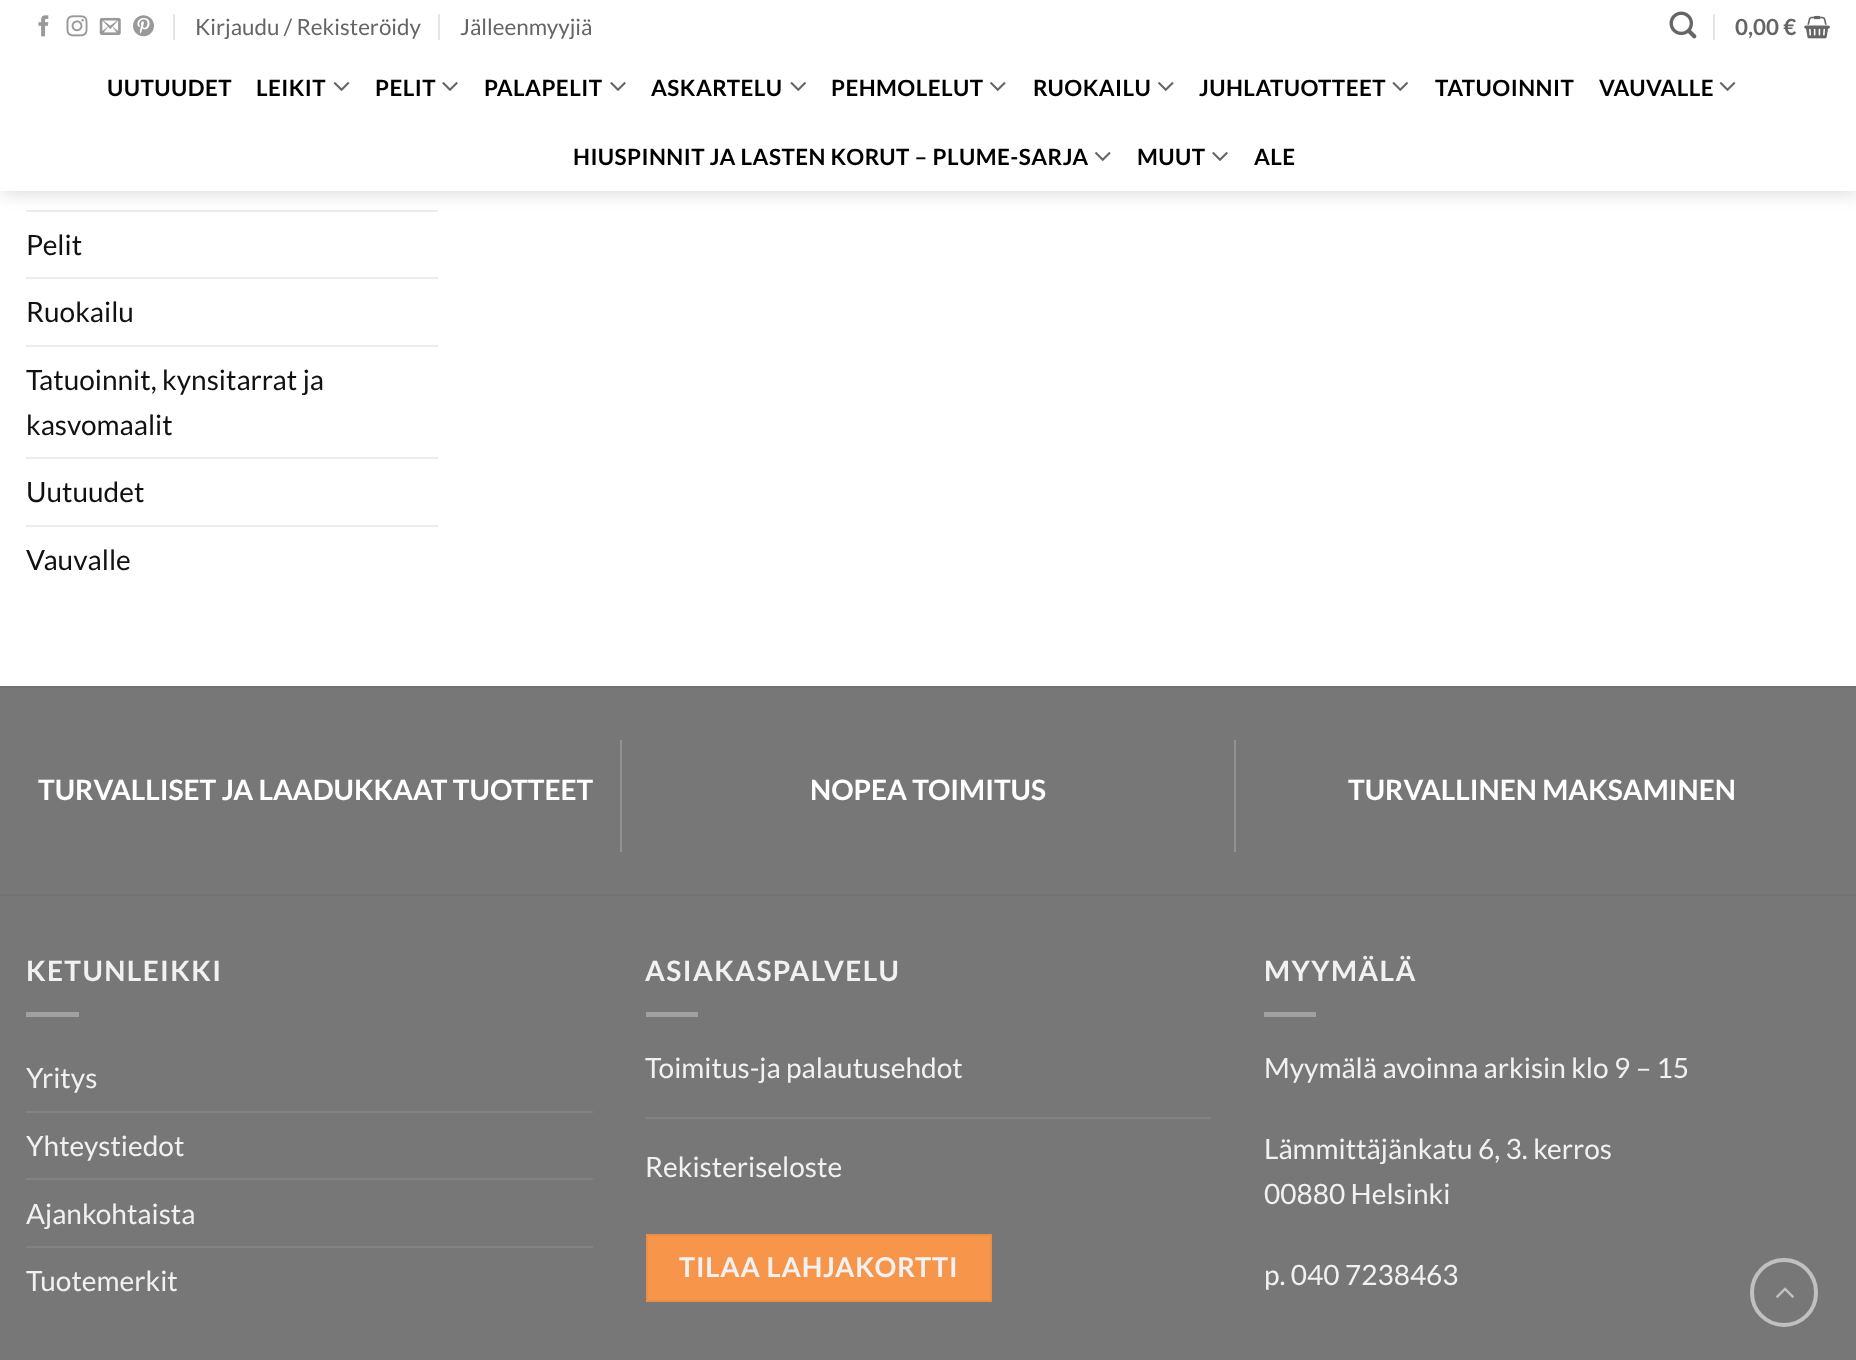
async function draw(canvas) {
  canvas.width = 1856
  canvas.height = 1360
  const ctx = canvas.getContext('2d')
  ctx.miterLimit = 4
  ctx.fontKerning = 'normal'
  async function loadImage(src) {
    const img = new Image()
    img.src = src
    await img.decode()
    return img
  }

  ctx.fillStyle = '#fff'
  ctx.fillRect(0, 0, 1856, 1360)
  ctx.fillStyle = '#ececec'
  ctx.fillRect(26, 210, 412, 2)
  ctx.fillStyle = '#00000026'
  ctx.filter = 'blur(9px)'
  ctx.beginPath()
  ctx.rect(2, 2, 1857, 191)
  ctx.fill()
  ctx.filter = 'none'
  ctx.fillStyle = '#fff'
  ctx.fillRect(0, 0, 1856, 191)
  ctx.drawImage(await loadImage('image0.png'), 38, 15, 11, 22)
  ctx.drawImage(await loadImage('image1.png'), 66, 15, 22, 22)
  ctx.drawImage(await loadImage('image2.png'), 99, 17, 22, 18)
  ctx.drawImage(await loadImage('image3.png'), 133, 15, 21, 22)
  ctx.fillStyle = '#e6e6e6'
  ctx.fillRect(173, 14, 2, 26)
  ctx.font = '22.4px Lato'
  ctx.fillStyle = '#656565'
  ctx.fillText('Kirjaudu / Rekisteröidy', 195, 35)
  ctx.fillStyle = '#e6e6e6'
  ctx.fillRect(438, 14, 2, 26)
  ctx.fillStyle = '#656565'
  ctx.fillText('Jälleenmyyjiä', 460, 35)
  ctx.drawImage(await loadImage('image4.png'), 1669, 11, 28, 28)
  ctx.fillStyle = '#e6e6e6'
  ctx.fillRect(1713, 14, 2, 26)
  ctx.font = 'bold 22.4px Lato'
  ctx.fillStyle = '#656565'
  ctx.fillText('0,00 €', 1735, 35)
  ctx.drawImage(await loadImage('image5.png'), 1804, 15, 26, 24)
  ctx.letterSpacing = '0.45px'
  ctx.fillStyle = '#000'
  ctx.fillText('UUTUUDET', 107, 96)
  ctx.fillText('LEIKIT', 256, 96)
  ctx.drawImage(await loadImage('image6.png'), 333, 82, 17, 9)
  ctx.fillText('PELIT', 375, 96)
  ctx.drawImage(await loadImage('image7.png'), 442, 82, 16, 9)
  ctx.fillText('PALAPELIT', 484, 96)
  ctx.drawImage(await loadImage('image7.png'), 610, 82, 16, 9)
  ctx.fillText('ASKARTELU', 651, 96)
  ctx.drawImage(await loadImage('image8.png'), 790, 82, 16, 9)
  ctx.fillText('PEHMOLELUT', 831, 96)
  ctx.drawImage(await loadImage('image9.png'), 990, 82, 16, 9)
  ctx.fillText('RUOKAILU', 1033, 96)
  ctx.drawImage(await loadImage('image9.png'), 1158, 82, 16, 9)
  ctx.fillText('JUHLATUOTTEET', 1199, 96)
  ctx.drawImage(await loadImage('image8.png'), 1392, 82, 16, 9)
  ctx.fillText('TATUOINNIT', 1435, 96)
  ctx.fillText('VAUVALLE', 1599, 96)
  ctx.drawImage(await loadImage('image6.png'), 1719, 82, 17, 9)
  ctx.fillText('HIUSPINNIT JA LASTEN KORUT – PLUME-SARJA', 573, 165)
  ctx.drawImage(await loadImage('image9.png'), 1095, 152, 16, 9)
  ctx.fillText('MUUT', 1137, 165)
  ctx.drawImage(await loadImage('image7.png'), 1212, 152, 16, 9)
  ctx.fillText('ALE', 1254, 165)
  ctx.letterSpacing = '0px'
  ctx.font = '28px Lato'
  ctx.fillStyle = '#111'
  ctx.fillText('Pelit', 26, 255)
  ctx.fillStyle = '#ececec'
  ctx.fillRect(26, 277, 412, 2)
  ctx.fillStyle = '#111'
  ctx.fillText('Ruokailu', 26, 322)
  ctx.fillStyle = '#ececec'
  ctx.fillRect(26, 345, 412, 2)
  ctx.fillStyle = '#111'
  ctx.fillText('Tatuoinnit, kynsitarrat ja', 26, 390)
  ctx.fillText('kasvomaalit', 26, 435)
  ctx.fillStyle = '#ececec'
  ctx.fillRect(26, 457, 412, 2)
  ctx.fillStyle = '#111'
  ctx.fillText('Uutuudet', 26, 502)
  ctx.fillStyle = '#ececec'
  ctx.fillRect(26, 525, 412, 2)
  ctx.fillStyle = '#111'
  ctx.fillText('Vauvalle', 26, 570)
  ctx.fillStyle = '#777'
  ctx.fillRect(0, 688, 1856, 206)
  ctx.fillStyle = '#717171'
  ctx.fillRect(0, 686, 1856, 2)
  ctx.font = 'bold 28px Lato'
  ctx.fillStyle = '#fff'
  ctx.fillText('TURVALLISET JA LAADUKKAAT TUOTTEET', 38, 800)
  ctx.fillStyle = '#929292'
  ctx.fillRect(620, 740, 2, 112)
  ctx.fillStyle = '#fff'
  ctx.fillText('NOPEA TOIMITUS', 810, 800)
  ctx.fillStyle = '#929292'
  ctx.fillRect(1234, 740, 2, 112)
  ctx.fillStyle = '#fff'
  ctx.fillText('TURVALLINEN MAKSAMINEN', 1348, 800)
  ctx.fillStyle = '#777'
  ctx.fillRect(0, 896, 1856, 464)
  ctx.fillStyle = '#717171'
  ctx.fillRect(0, 894, 1856, 2)
  ctx.letterSpacing = '1.4px'
  ctx.fillStyle = '#f1f1f1'
  ctx.fillText('KETUNLEIKKI', 26, 981)
  ctx.fillStyle = '#a0a0a0'
  ctx.fillRect(26, 1012, 53, 5)
  ctx.letterSpacing = '0px'
  ctx.font = '28px Lato'
  ctx.fillStyle = '#f1f1f1'
  ctx.fillText('Yritys', 26, 1088)
  ctx.fillStyle = '#828282'
  ctx.fillRect(26, 1111, 567, 2)
  ctx.fillStyle = '#f1f1f1'
  ctx.fillText('Yhteystiedot', 26, 1156)
  ctx.fillStyle = '#828282'
  ctx.fillRect(26, 1178, 567, 2)
  ctx.fillStyle = '#f1f1f1'
  ctx.fillText('Ajankohtaista', 26, 1224)
  ctx.fillStyle = '#828282'
  ctx.fillRect(26, 1246, 567, 2)
  ctx.fillStyle = '#f1f1f1'
  ctx.fillText('Tuotemerkit', 26, 1291)
  ctx.letterSpacing = '1.4px'
  ctx.font = 'bold 28px Lato'
  ctx.fillText('ASIAKASPALVELU', 645, 981)
  ctx.fillStyle = '#a0a0a0'
  ctx.fillRect(646, 1012, 52, 5)
  ctx.letterSpacing = '0px'
  ctx.font = '28px Lato'
  ctx.fillStyle = '#f1f1f1'
  ctx.fillText('Toimitus-ja palautusehdot', 645, 1078)
  ctx.fillStyle = '#838383'
  ctx.fillRect(646, 1117, 565, 2)
  ctx.fillStyle = '#f1f1f1'
  ctx.fillText('Rekisteriseloste', 645, 1177)
  ctx.fillStyle = '#f7954a'
  ctx.beginPath()
  ctx.rect(647, 1235, 344, 66)
  ctx.fill()
  ctx.strokeStyle = '#eb8e46'
  ctx.lineWidth = 2
  ctx.stroke()
  ctx.letterSpacing = '0.8px'
  ctx.font = 'bold 27.25px Lato'
  ctx.fillStyle = '#f1f1f1'
  ctx.fillText('TILAA LAHJAKORTTI', 679, 1277)
  ctx.letterSpacing = '1.4px'
  ctx.font = 'bold 28px Lato'
  ctx.fillText('MYYMÄLÄ', 1264, 981)
  ctx.fillStyle = '#a0a0a0'
  ctx.fillRect(1264, 1012, 52, 5)
  ctx.letterSpacing = '0px'
  ctx.font = '28px Lato'
  ctx.fillStyle = '#f1f1f1'
  ctx.fillText('Myymälä avoinna arkisin klo 9 – 15', 1264, 1078)
  ctx.fillText('Lämmittäjänkatu 6, 3. kerros', 1264, 1159)
  ctx.fillText('00880 Helsinki', 1264, 1204)
  ctx.fillText('p. 040 7238463', 1264, 1285)
  ctx.beginPath()
  ctx.roundRect(1752, 1260, 64, 65, 32)
  ctx.strokeStyle = '#c0c0c0'
  ctx.lineWidth = 4
  ctx.stroke()
  ctx.drawImage(await loadImage('image10.png'), 1776, 1287, 18, 11)
}

draw(document.querySelector('canvas'))
